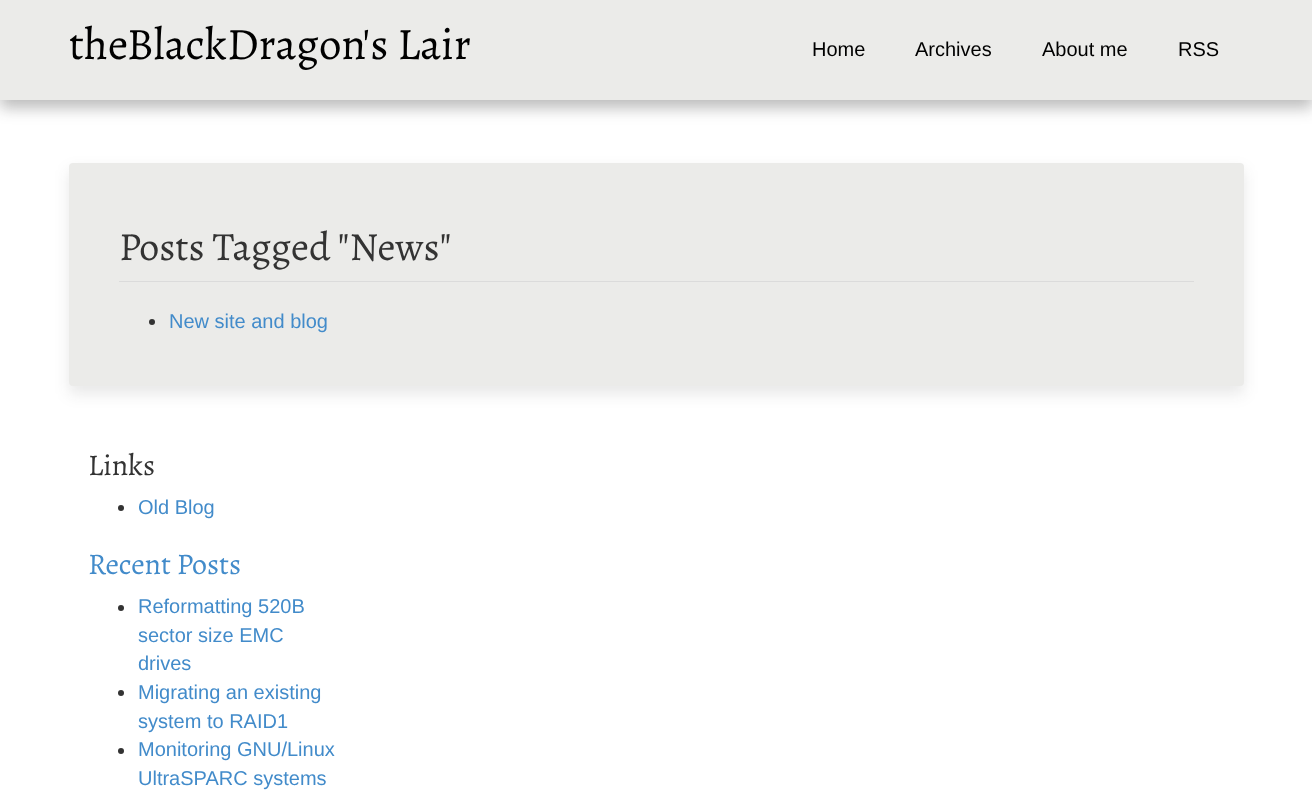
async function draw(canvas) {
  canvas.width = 1312
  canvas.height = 809
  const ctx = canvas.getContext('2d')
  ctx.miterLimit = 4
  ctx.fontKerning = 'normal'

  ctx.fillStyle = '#fff'
  ctx.fillRect(0, 0, 1312, 809)
  ctx.fillStyle = '#2222224d'
  ctx.filter = 'blur(7.5px)'
  ctx.beginPath()
  ctx.rect(0, 8, 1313, 100)
  ctx.fill()
  ctx.filter = 'none'
  ctx.fillStyle = '#ebebe9'
  ctx.fillRect(0, 0, 1312, 100)
  ctx.font = '45px Alegreya'
  ctx.fillStyle = '#000'
  ctx.fillText('theBlackDragon\'s Lair', 69, 59)
  ctx.font = '20px Liberation Sans'
  ctx.fillText('Home', 812, 56)
  ctx.fillText('Archives', 915, 56)
  ctx.fillText('About me', 1042, 56)
  ctx.fillText('RSS', 1178, 56)
  ctx.fillStyle = '#2222221a'
  ctx.filter = 'blur(7.5px)'
  ctx.beginPath()
  ctx.roundRect(69, 170, 1175, 224, 4)
  ctx.fill()
  ctx.filter = 'none'
  ctx.fillStyle = '#ebebe9'
  ctx.beginPath()
  ctx.roundRect(69, 163, 1175, 223, 4)
  ctx.fill()
  ctx.fillStyle = '#dbdbdb'
  ctx.fillRect(119, 281, 1075, 1)
  ctx.font = '40px Alegreya'
  ctx.fillStyle = '#333'
  ctx.fillText('Posts Tagged "News"', 119, 260)
  ctx.beginPath()
  ctx.arc(152, 322, 3, 0, 2 * Math.PI)
  ctx.fill()
  ctx.font = '20px Liberation Sans'
  ctx.fillStyle = '#428bca'
  ctx.fillText('New site and blog', 169, 328)
  ctx.font = '30px Alegreya'
  ctx.fillStyle = '#333'
  ctx.fillText('Links', 88, 475)
  ctx.beginPath()
  ctx.arc(121, 508, 3, 0, 2 * Math.PI)
  ctx.fill()
  ctx.font = '20px Liberation Sans'
  ctx.fillStyle = '#428bca'
  ctx.fillText('Old Blog', 138, 514)
  ctx.font = '30px Alegreya'
  ctx.fillText('Recent Posts', 88, 574)
  ctx.fillStyle = '#333'
  ctx.beginPath()
  ctx.arc(121, 608, 3, 0, 2 * Math.PI)
  ctx.fill()
  ctx.font = '20px Liberation Sans'
  ctx.fillStyle = '#428bca'
  ctx.fillText('Reformatting 520B', 138, 613)
  ctx.fillText('sector size EMC', 138, 642)
  ctx.fillText('drives', 138, 670)
  ctx.fillStyle = '#333'
  ctx.beginPath()
  ctx.arc(121, 693, 3, 0, 2 * Math.PI)
  ctx.fill()
  ctx.fillStyle = '#428bca'
  ctx.fillText('Migrating an existing', 138, 699)
  ctx.fillText('system to RAID1', 138, 728)
  ctx.fillStyle = '#333'
  ctx.beginPath()
  ctx.arc(121, 751, 3, 0, 2 * Math.PI)
  ctx.fill()
  ctx.fillStyle = '#428bca'
  ctx.fillText('Monitoring GNU/Linux', 138, 756)
  ctx.fillText('UltraSPARC systems', 138, 785)
}

draw(document.querySelector('canvas'))
